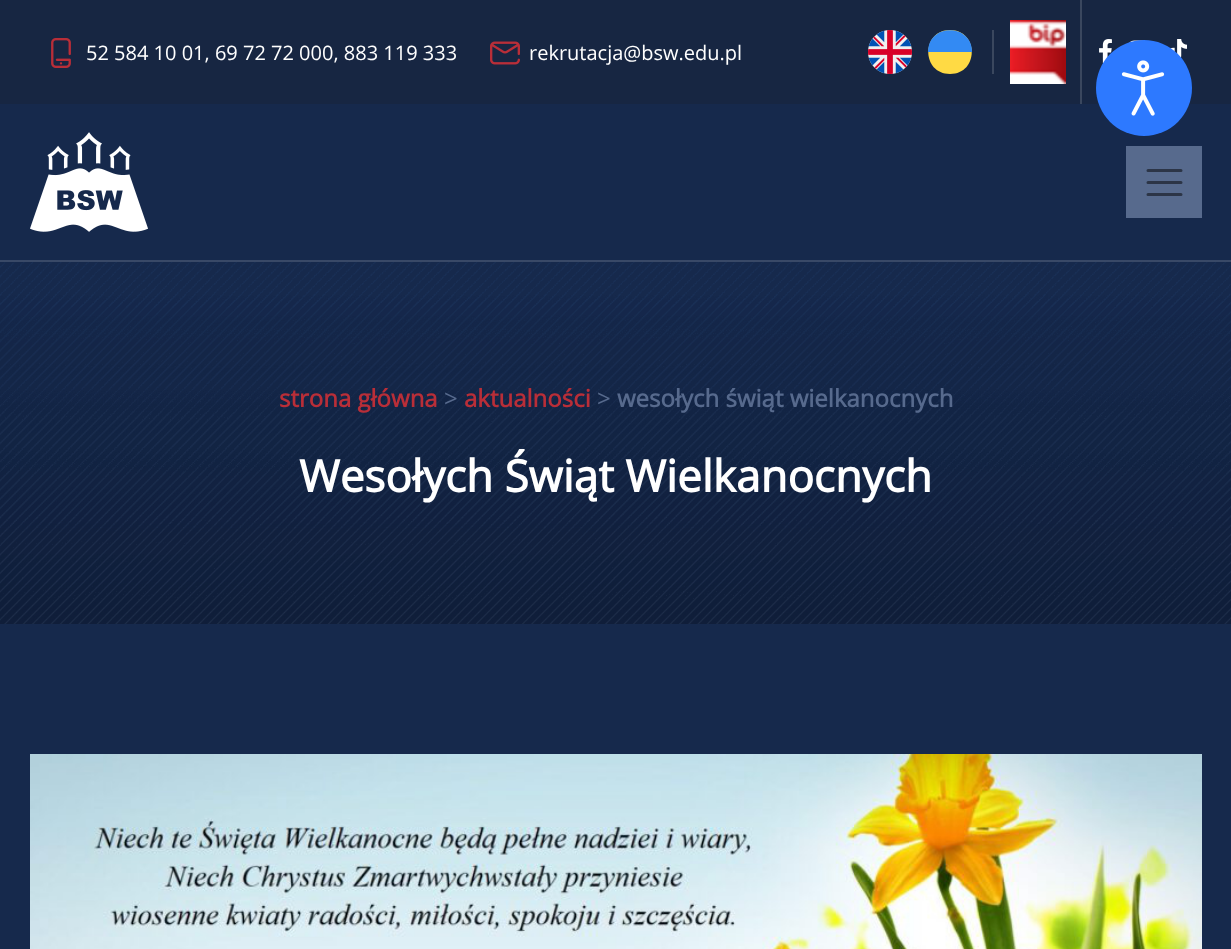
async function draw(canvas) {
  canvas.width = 1231
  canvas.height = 949
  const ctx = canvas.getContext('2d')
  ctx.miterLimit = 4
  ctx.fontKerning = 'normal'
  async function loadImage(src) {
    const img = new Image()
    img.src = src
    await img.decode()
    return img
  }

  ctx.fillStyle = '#16294c'
  ctx.fillRect(0, 0, 1231, 949)
  ctx.fillStyle = '#172642'
  ctx.fillRect(0, 0, 1231, 104)
  ctx.drawImage(await loadImage('image0.png'), 51, 38, 20, 30)
  ctx.font = '20px Open Sans'
  ctx.fillStyle = '#fff'
  ctx.fillText('52 584 10 01, 69 72 72 000, 883 119 333', 86, 60)
  ctx.drawImage(await loadImage('image1.png'), 490, 41, 30, 24)
  ctx.fillText('rekrutacja@bsw.edu.pl', 529, 60)
  ctx.drawImage(await loadImage('image2.png'), 868, 30, 44, 44)
  ctx.fillStyle = '#ffda44'
  ctx.beginPath()
  ctx.moveTo(950, 74)
  ctx.bezierCurveTo(979, 74, 979, 30, 950, 30)
  ctx.bezierCurveTo(921, 30, 921, 74, 950, 74)
  ctx.closePath()
  ctx.fill()
  ctx.fillStyle = '#338af3'
  ctx.beginPath()
  ctx.moveTo(928, 52)
  ctx.bezierCurveTo(928, 23, 972, 23, 972, 52)
  ctx.fill()
  ctx.fillStyle = '#3a475e'
  ctx.fillRect(992, 30, 2, 44)
  ctx.drawImage(await loadImage('image3.png'), 1010, 20, 56, 64)
  ctx.fillRect(1080, 0, 2, 104)
  ctx.drawImage(await loadImage('image4.png'), 1099, 39, 13, 24)
  ctx.drawImage(await loadImage('image5.png'), 1129, 40, 16, 3)
  ctx.drawImage(await loadImage('image6.png'), 1170, 39, 17, 19)
  ctx.fillStyle = '#394967'
  ctx.fillRect(0, 260, 1231, 2)
  ctx.drawImage(await loadImage('image7.png'), 30, 132, 118, 100)
  ctx.fillStyle = '#576a8d'
  ctx.fillRect(1126, 146, 76, 72)
  ctx.beginPath()
  ctx.moveTo(1148, 170.5)
  ctx.lineTo(1181, 170.5)
  ctx.moveTo(1148, 182.5)
  ctx.lineTo(1181, 182.5)
  ctx.moveTo(1148, 194.5)
  ctx.lineTo(1181, 194.5)
  ctx.strokeStyle = '#2c3547'
  ctx.lineWidth = 3
  ctx.lineCap = 'round'
  ctx.stroke()
  ctx.fillStyle = '#172642'
  ctx.fillRect(0, 294, 1231, 330)
  ctx.drawImage(await loadImage('image8.png'), 0, 262, 1231, 362)
  ctx.font = 'bold 24px Open Sans'
  ctx.fillStyle = '#b92e38'
  ctx.fillText('strona główna', 279, 407)
  ctx.font = '24px Open Sans'
  ctx.fillStyle = '#576a8d'
  ctx.fillText('>', 444, 407)
  ctx.font = 'bold 24px Open Sans'
  ctx.fillStyle = '#b92e38'
  ctx.fillText('aktualności', 464, 407)
  ctx.font = '24px Open Sans'
  ctx.fillStyle = '#576a8d'
  ctx.fillText('>', 597, 407)
  ctx.font = 'bold 24px Open Sans'
  ctx.fillText('wesołych świąt wielkanocnych', 617, 407)
  ctx.font = 'bold 44px Open Sans'
  ctx.fillStyle = '#fff'
  ctx.fillText('Wesołych Świąt Wielkanocnych', 299, 492)
  ctx.drawImage(await loadImage('image9.png'), 30, 754, 1172, 195)
  ctx.fillStyle = '#2d79ff'
  ctx.beginPath()
  ctx.arc(1144, 88, 48, 0, 2 * Math.PI)
  ctx.fill()
  ctx.drawImage(await loadImage('image10.png'), 1121, 60, 44, 56)
}

draw(document.querySelector('canvas'))
